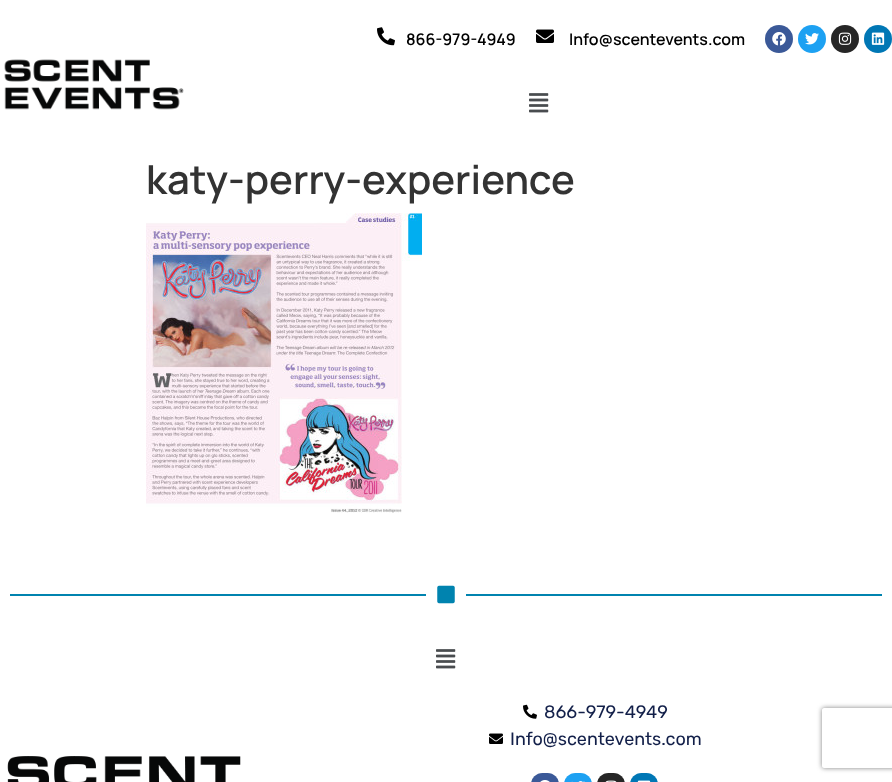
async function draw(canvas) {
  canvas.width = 892
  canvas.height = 782
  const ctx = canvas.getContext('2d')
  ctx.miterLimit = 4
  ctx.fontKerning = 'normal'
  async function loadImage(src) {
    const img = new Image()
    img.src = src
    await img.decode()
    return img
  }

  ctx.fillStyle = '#fff'
  ctx.fillRect(0, 0, 892, 782)
  ctx.drawImage(await loadImage('image0.png'), 377, 27, 18, 19)
  ctx.font = '600 16px Manrope'
  ctx.fillStyle = '#000'
  ctx.fillText('866-979-4949', 406, 45)
  ctx.drawImage(await loadImage('image1.png'), 536, 29, 18, 14)
  ctx.fillText('Info@scentevents.com', 569, 45)
  ctx.fillStyle = '#3b5998'
  ctx.beginPath()
  ctx.arc(779, 39, 14, 0, 2 * Math.PI)
  ctx.fill()
  ctx.drawImage(await loadImage('image2.png'), 772, 32, 14, 14)
  ctx.fillStyle = '#1da1f2'
  ctx.beginPath()
  ctx.arc(812, 39, 14, 0, 2 * Math.PI)
  ctx.fill()
  ctx.drawImage(await loadImage('image3.png'), 805, 33, 14, 12)
  ctx.fillStyle = '#262626'
  ctx.beginPath()
  ctx.arc(845, 39, 14, 0, 2 * Math.PI)
  ctx.fill()
  ctx.drawImage(await loadImage('image4.png'), 838, 32, 14, 13)
  ctx.fillStyle = '#0077b5'
  ctx.beginPath()
  ctx.arc(878, 39, 14, 0, 2 * Math.PI)
  ctx.fill()
  ctx.drawImage(await loadImage('image5.png'), 871, 32, 14, 13)
  ctx.drawImage(await loadImage('image6.png'), 4, 59, 180, 51)
  ctx.drawImage(await loadImage('image7.png'), 529, 93, 20, 20)
  ctx.font = '600 40px Manrope'
  ctx.fillStyle = '#333'
  ctx.fillText('katy-perry-experience', 146, 194)
  ctx.drawImage(await loadImage('image8.png'), 146, 213, 276, 300)
  ctx.fillStyle = '#0083af'
  ctx.fillRect(10, 594, 416, 2)
  ctx.drawImage(await loadImage('image9.png'), 437, 585, 18, 19)
  ctx.fillRect(466, 594, 416, 2)
  ctx.drawImage(await loadImage('image7.png'), 436, 649, 20, 20)
  ctx.drawImage(await loadImage('image10.png'), 523, 704, 14, 15)
  ctx.font = '18px Rubik'
  ctx.fillStyle = '#121f49'
  ctx.fillText('866-979-4949', 544, 718)
  ctx.drawImage(await loadImage('image11.png'), 489, 733, 14, 11)
  ctx.fillText('Info@scentevents.com', 510, 745)
  ctx.fillStyle = '#3b5998'
  ctx.beginPath()
  ctx.roundRect(531, 773, 28, 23, 14)
  ctx.fill()
  ctx.drawImage(await loadImage('image12.png'), 540, 780, 10, 2)
  ctx.fillStyle = '#1da1f2'
  ctx.beginPath()
  ctx.roundRect(564, 773, 28, 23, 14)
  ctx.fill()
  ctx.drawImage(await loadImage('image13.png'), 571, 781, 14, 1)
  ctx.fillStyle = '#262626'
  ctx.beginPath()
  ctx.roundRect(597, 773, 28, 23, 14)
  ctx.fill()
  ctx.drawImage(await loadImage('image14.png'), 605, 780, 12, 2)
  ctx.fillStyle = '#0077b5'
  ctx.beginPath()
  ctx.roundRect(630, 773, 28, 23, 14)
  ctx.fill()
  ctx.drawImage(await loadImage('image15.png'), 637, 780, 14, 2)
  ctx.drawImage(await loadImage('image16.png'), 7, 756, 234, 26)
  ctx.save()
  ctx.beginPath()
  ctx.moveTo(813, 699)
  ctx.lineTo(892, 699)
  ctx.lineTo(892, 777)
  ctx.lineTo(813, 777)
  ctx.closePath()
  ctx.moveTo(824, 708)
  ctx.lineTo(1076, 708)
  ctx.bezierCurveTo(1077, 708, 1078, 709, 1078, 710)
  ctx.lineTo(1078, 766)
  ctx.bezierCurveTo(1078, 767, 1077, 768, 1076, 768)
  ctx.lineTo(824, 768)
  ctx.bezierCurveTo(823, 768, 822, 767, 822, 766)
  ctx.lineTo(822, 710)
  ctx.bezierCurveTo(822, 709, 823, 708, 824, 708)
  ctx.closePath()
  ctx.clip('evenodd')
  ctx.fillStyle = '#808080'
  ctx.filter = 'blur(2.5px)'
  ctx.beginPath()
  ctx.roundRect(822, 708, 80, 60, 2)
  ctx.fill()
  ctx.filter = 'none'
  ctx.restore()
}

draw(document.querySelector('canvas'))
